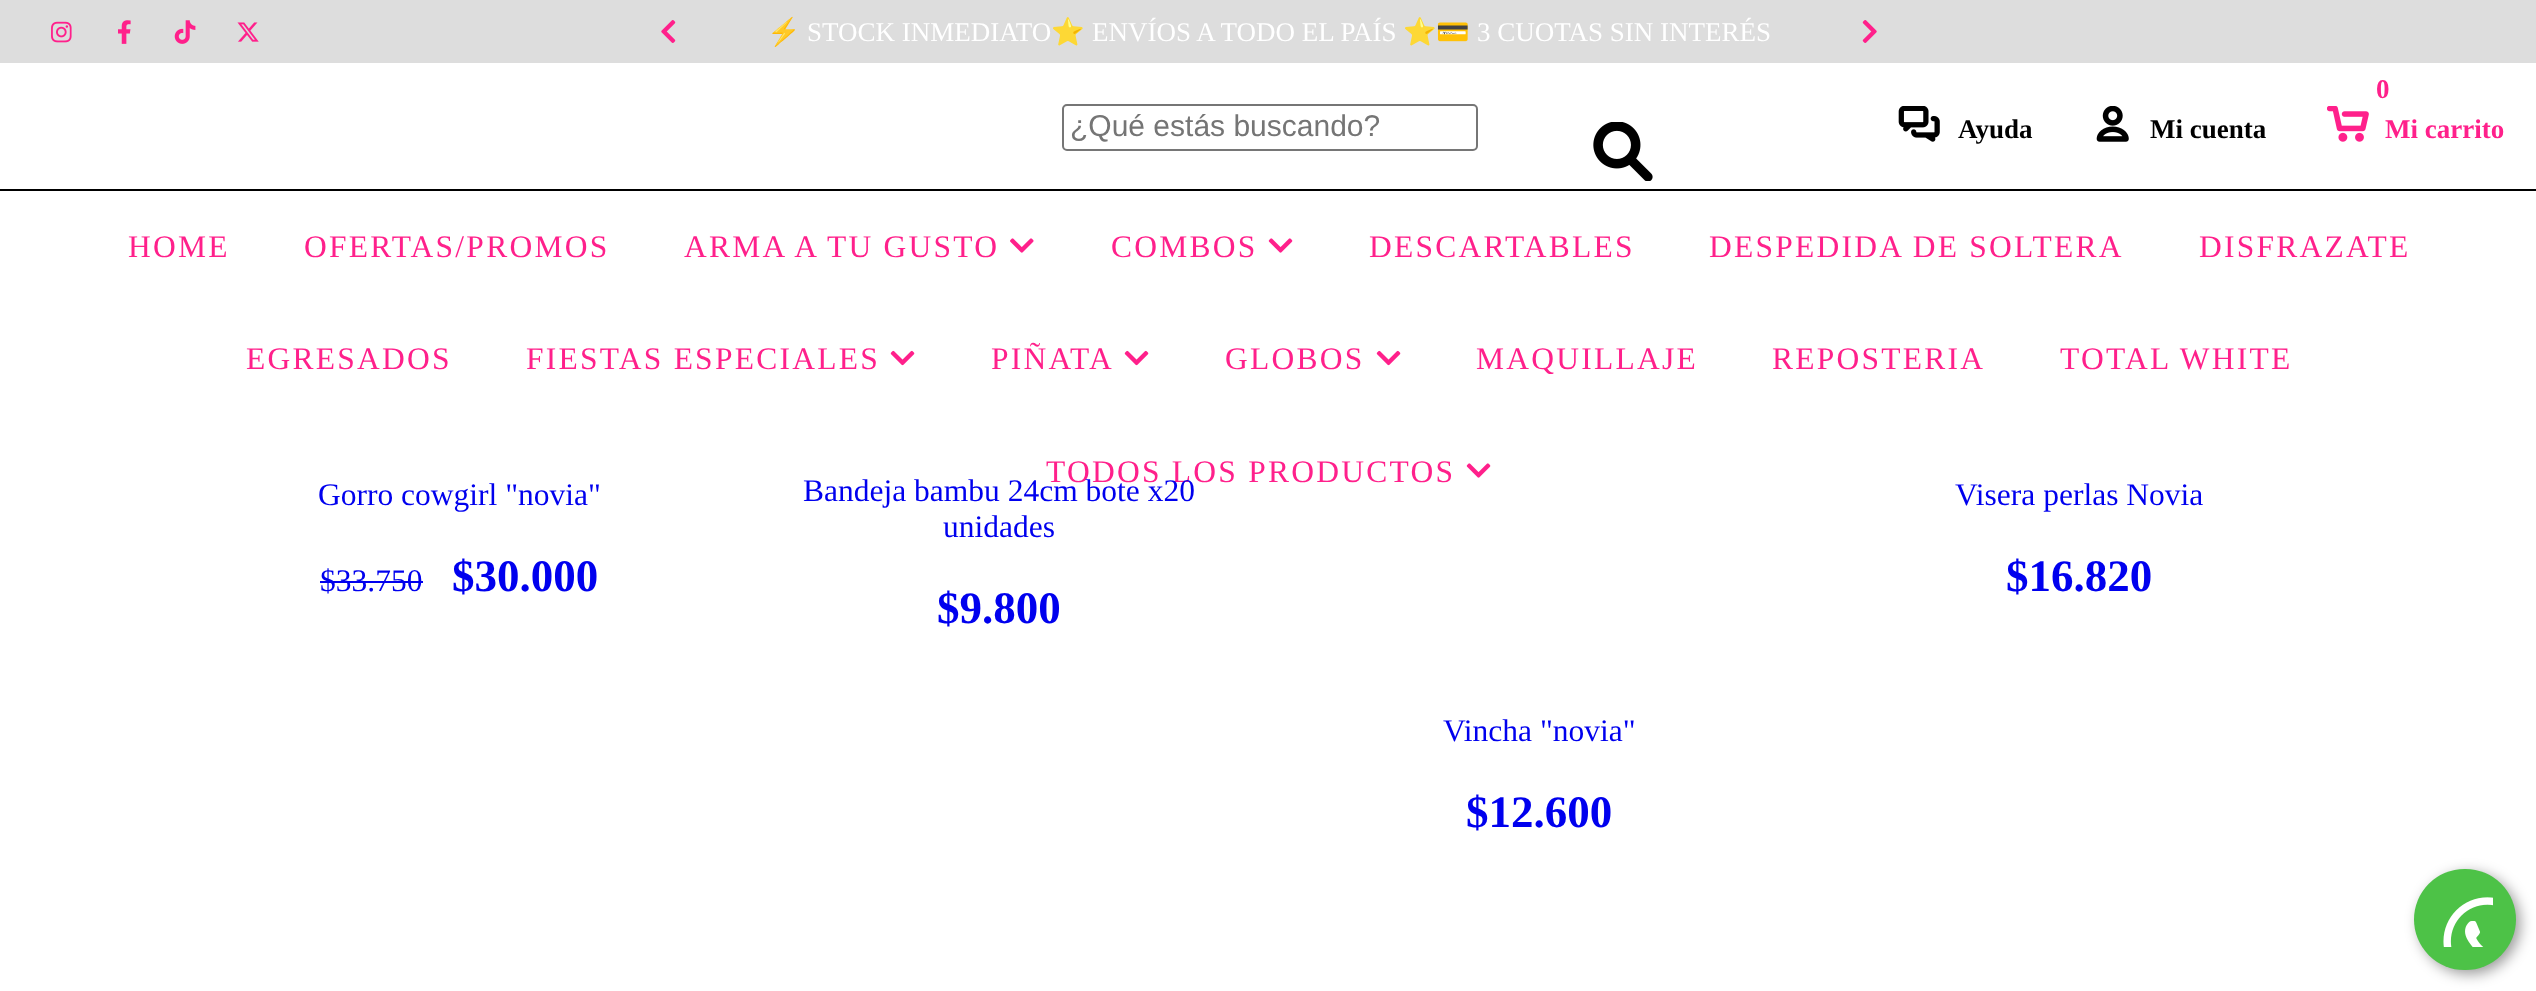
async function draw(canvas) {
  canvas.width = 2536
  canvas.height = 991
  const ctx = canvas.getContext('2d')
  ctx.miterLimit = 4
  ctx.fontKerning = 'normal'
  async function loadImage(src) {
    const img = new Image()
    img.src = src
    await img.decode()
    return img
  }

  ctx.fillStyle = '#fff'
  ctx.fillRect(0, 0, 2536, 991)
  ctx.fillStyle = '#ddd'
  ctx.fillRect(0, 0, 2536, 63)
  ctx.drawImage(await loadImage('image0.png'), 51, 21, 21, 22)
  ctx.drawImage(await loadImage('image1.png'), 118, 20, 13, 24)
  ctx.drawImage(await loadImage('image2.png'), 174, 20, 22, 24)
  ctx.drawImage(await loadImage('image3.png'), 237, 22, 22, 20)
  ctx.drawImage(await loadImage('image4.png'), 661, 20, 15, 23)
  ctx.font = '27px Noto Color Emoji'
  ctx.fillStyle = '#fff'
  ctx.fillText('⚡', 767, 41)
  ctx.font = '27px Liberation Serif'
  ctx.fillText('STOCK INMEDIATO', 807, 41)
  ctx.font = '27px Noto Color Emoji'
  ctx.fillText('⭐', 1051, 41)
  ctx.font = '27px Liberation Serif'
  ctx.fillText('ENVÍOS A TODO EL PAÍS', 1092, 41)
  ctx.font = '27px Noto Color Emoji'
  ctx.fillText('⭐💳', 1403, 41)
  ctx.font = '27px Liberation Serif'
  ctx.fillText('3 CUOTAS SIN INTERÉS', 1477, 41)
  ctx.drawImage(await loadImage('image5.png'), 1862, 20, 15, 23)
  ctx.beginPath()
  ctx.roundRect(1063, 105, 414, 45, 4)
  ctx.strokeStyle = '#767676'
  ctx.lineWidth = 2
  ctx.stroke()
  ctx.font = '30px Liberation Sans'
  ctx.fillStyle = '#757575'
  ctx.fillText('¿Qué estás buscando?', 1070, 136)
  ctx.drawImage(await loadImage('image6.png'), 1593, 122, 60, 59)
  ctx.drawImage(await loadImage('image7.png'), 1898, 106, 42, 36)
  ctx.font = 'bold 27px Liberation Serif'
  ctx.fillStyle = '#000'
  ctx.fillText('Ayuda', 1958, 138)
  ctx.drawImage(await loadImage('image8.png'), 2096, 106, 33, 36)
  ctx.fillText('Mi cuenta', 2150, 138)
  ctx.fillStyle = '#ff208b'
  ctx.fillText('0', 2376, 98)
  ctx.drawImage(await loadImage('image9.png'), 2327, 106, 42, 36)
  ctx.fillText('Mi carrito', 2385, 138)
  ctx.fillStyle = '#000'
  ctx.fillRect(0, 189, 2536, 2)
  ctx.letterSpacing = '2.25px'
  ctx.font = '31.5px Liberation Serif'
  ctx.fillStyle = '#ff208b'
  ctx.fillText('HOME', 128, 257)
  ctx.fillText('OFERTAS/PROMOS', 304, 257)
  ctx.fillText('ARMA A TU GUSTO', 684, 257)
  ctx.drawImage(await loadImage('image10.png'), 1010, 238, 24, 15)
  ctx.fillText('COMBOS', 1111, 257)
  ctx.drawImage(await loadImage('image11.png'), 1268, 238, 25, 15)
  ctx.fillText('DESCARTABLES', 1369, 257)
  ctx.fillText('DESPEDIDA DE SOLTERA', 1709, 257)
  ctx.fillText('DISFRAZATE', 2199, 257)
  ctx.fillText('EGRESADOS', 246, 369)
  ctx.fillText('FIESTAS ESPECIALES', 526, 369)
  ctx.drawImage(await loadImage('image12.png'), 890, 350, 25, 16)
  ctx.fillText('PIÑATA', 991, 369)
  ctx.drawImage(await loadImage('image12.png'), 1124, 350, 25, 16)
  ctx.fillText('GLOBOS', 1225, 369)
  ctx.drawImage(await loadImage('image12.png'), 1376, 350, 25, 16)
  ctx.fillText('MAQUILLAJE', 1476, 369)
  ctx.fillText('REPOSTERIA', 1772, 369)
  ctx.fillText('TOTAL WHITE', 2060, 369)
  ctx.fillText('TODOS LOS PRODUCTOS', 1046, 482)
  ctx.drawImage(await loadImage('image11.png'), 1466, 463, 25, 15)
  ctx.letterSpacing = '0px'
  ctx.fillStyle = '#00e'
  ctx.fillText('Gorro cowgirl "novia"', 318, 505)
  ctx.fillText('$33.750', 320, 591)
  ctx.fillRect(320, 581, 103, 2)
  ctx.font = 'bold 45px Liberation Serif'
  ctx.fillText('$30.000', 452, 591)
  ctx.font = '31.5px Liberation Serif'
  ctx.fillText('Bandeja bambu 24cm bote x20', 803, 501)
  ctx.fillText('unidades', 943, 537)
  ctx.font = 'bold 45px Liberation Serif'
  ctx.fillText('$9.800', 937, 623)
  ctx.font = '31.5px Liberation Serif'
  ctx.fillText('Visera perlas Novia', 1955, 505)
  ctx.font = 'bold 45px Liberation Serif'
  ctx.fillText('$16.820', 2006, 591)
  ctx.font = '31.5px Liberation Serif'
  ctx.fillText('Vincha "novia"', 1443, 741)
  ctx.font = 'bold 45px Liberation Serif'
  ctx.fillText('$12.600', 1466, 827)
  ctx.fillStyle = '#00000066'
  ctx.filter = 'blur(7px)'
  ctx.beginPath()
  ctx.roundRect(2419, 873, 101, 101, 50.5)
  ctx.fill()
  ctx.filter = 'none'
  ctx.fillStyle = '#4dc247'
  ctx.beginPath()
  ctx.roundRect(2414, 869, 102, 101, 50.5)
  ctx.fill()
  ctx.drawImage(await loadImage('image13.png'), 2443, 897, 50, 50)
}

draw(document.querySelector('canvas'))
